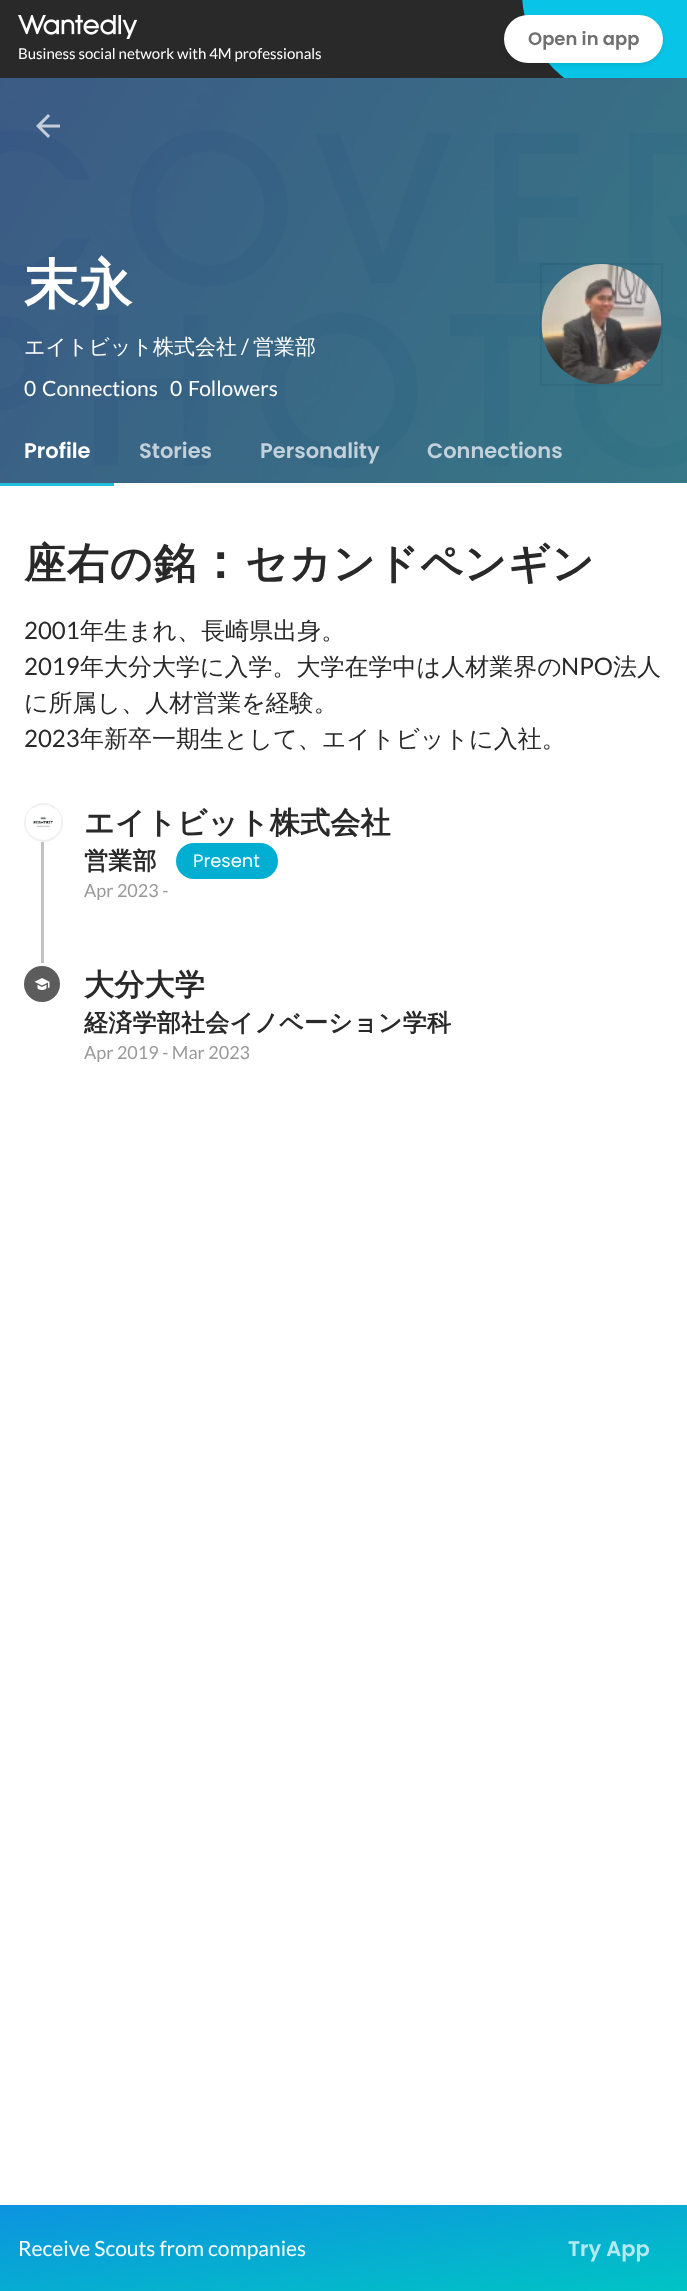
async function draw(canvas) {
  canvas.width = 687
  canvas.height = 2291
  const ctx = canvas.getContext('2d')
  ctx.miterLimit = 4
  ctx.fontKerning = 'normal'
  async function loadImage(src) {
    const img = new Image()
    img.src = src
    await img.decode()
    return img
  }
  let gradient

  ctx.fillStyle = '#fff'
  ctx.fillRect(0, 0, 687, 2291)
  ctx.fillStyle = '#292929'
  ctx.fillRect(0, 0, 570, 78)
  ctx.fillStyle = '#08c5e7'
  ctx.beginPath()
  ctx.roundRect(522, -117, 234, 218, 117)
  ctx.fill()
  ctx.fillStyle = '#0000001a'
  ctx.filter = 'blur(2px)'
  ctx.beginPath()
  ctx.roundRect(504, 17, 159, 48, 24)
  ctx.fill()
  ctx.filter = 'none'
  ctx.fillStyle = '#fff'
  ctx.beginPath()
  ctx.roundRect(504, 15, 159, 48, 24)
  ctx.fill()
  ctx.font = '600 18px Poppins'
  ctx.fillStyle = '#707070'
  ctx.fillText('Open in app', 528, 45)
  ctx.drawImage(await loadImage('image0.png'), 18, 15, 120, 24)
  ctx.font = '15px Lato'
  ctx.fillStyle = '#fff'
  ctx.fillText('Business social network with 4M professionals', 18, 59)
  ctx.drawImage(await loadImage('image1.png'), 0, 78, 687, 405)
  ctx.drawImage(await loadImage('image2.png'), 36, 114, 24, 24)
  ctx.font = 'bold 54px WenQuanYi Zen Hei'
  ctx.fillText('末永', 24, 303)
  ctx.font = '500 21px WenQuanYi Zen Hei'
  ctx.fillText('エイトビット株式会社', 24, 354)
  ctx.font = '21px Lato'
  ctx.fillText('/', 241, 354)
  ctx.font = '500 21px WenQuanYi Zen Hei'
  ctx.fillText('営業部', 253, 354)
  ctx.font = '21px Lato'
  ctx.fillText('0', 24, 396)
  ctx.fillText('Connections', 42, 396)
  ctx.fillText('0', 170, 396)
  ctx.fillText('Followers', 188, 396)
  ctx.strokeStyle = '#0000000f'
  ctx.lineWidth = 2
  ctx.strokeRect(541, 264, 121, 121)
  ctx.drawImage(await loadImage('image3.png'), 541, 264, 121, 120)
  ctx.fillStyle = '#21bddb'
  ctx.fillRect(0, 483, 114, 3)
  ctx.font = '600 21px Poppins'
  ctx.fillStyle = '#fff'
  ctx.fillText('Profile', 24, 458)
  ctx.fillStyle = '#c3d1da'
  ctx.fillText('Stories', 139, 458)
  ctx.fillText('Personality', 260, 458)
  ctx.fillText('Connections', 427, 458)
  ctx.letterSpacing = '0.75px'
  ctx.font = 'bold 42px WenQuanYi Zen Hei'
  ctx.fillStyle = '#292929'
  ctx.fillText('座右の銘', 24, 578)
  ctx.font = 'bold 48px WenQuanYi Zen Hei'
  ctx.fillText('：', 196, 578)
  ctx.font = 'bold 42px WenQuanYi Zen Hei'
  ctx.fillText('セカンドペンギン', 245, 578)
  ctx.letterSpacing = '0px'
  ctx.font = '24px Lato'
  ctx.fillText('2001', 24, 639)
  ctx.font = '500 24px WenQuanYi Zen Hei'
  ctx.fillText('年生まれ、長崎県出身。', 80, 639)
  ctx.font = '24px Lato'
  ctx.fillText('2019', 24, 675)
  ctx.font = '500 24px WenQuanYi Zen Hei'
  ctx.fillText('年大分大学に入学。大学在学中は人材業界の', 80, 675)
  ctx.font = '24px Lato'
  ctx.fillText('NPO', 561, 675)
  ctx.font = '500 24px WenQuanYi Zen Hei'
  ctx.fillText('法人', 613, 675)
  ctx.fillText('に所属し、人材営業を経験。', 24, 711)
  ctx.font = '24px Lato'
  ctx.fillText('2023', 24, 747)
  ctx.font = '500 24px WenQuanYi Zen Hei'
  ctx.fillText('年新卒一期生として、エイトビットに入社。', 80, 747)
  ctx.fillStyle = '#c2c2c2'
  ctx.fillRect(41, 842, 3, 121)
  ctx.beginPath()
  ctx.arc(43.5, 822.5, 18.5, 0, 2 * Math.PI)
  ctx.strokeStyle = '#f0f0f0'
  ctx.stroke()
  ctx.drawImage(await loadImage('image4.png'), 26, 808, 35, 27)
  ctx.letterSpacing = '0.25px'
  ctx.font = 'bold 30px WenQuanYi Zen Hei'
  ctx.fillStyle = '#292929'
  ctx.fillText('エイトビット株式会社', 84, 833)
  ctx.font = 'bold 24px WenQuanYi Zen Hei'
  ctx.fillText('営業部', 84, 869)
  ctx.fillStyle = '#00aed1'
  ctx.beginPath()
  ctx.roundRect(176, 843, 102, 36, 18)
  ctx.fill()
  ctx.letterSpacing = '0px'
  ctx.font = '18px Poppins'
  ctx.fillStyle = '#fff'
  ctx.fillText('Present', 193, 867)
  ctx.font = '18px Lato'
  ctx.fillStyle = '#999'
  ctx.fillText('Apr 2023 -', 84, 897)
  ctx.fillStyle = '#5c5c5c'
  ctx.beginPath()
  ctx.arc(42, 984, 18, 0, 2 * Math.PI)
  ctx.fill()
  ctx.drawImage(await loadImage('image5.png'), 34, 978, 16, 12)
  ctx.letterSpacing = '0.25px'
  ctx.font = 'bold 30px WenQuanYi Zen Hei'
  ctx.fillStyle = '#292929'
  ctx.fillText('大分大学', 84, 995)
  ctx.font = 'bold 24px WenQuanYi Zen Hei'
  ctx.fillText('経済学部社会イノベーション学科', 84, 1031)
  ctx.letterSpacing = '0px'
  ctx.font = '18px Lato'
  ctx.fillStyle = '#999'
  ctx.fillText('Apr 2019 - Mar 2023', 84, 1059)
  ctx.fillStyle = '#0000001a'
  ctx.filter = 'blur(4.5px)'
  ctx.beginPath()
  ctx.rect(0, 2208, 687, 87)
  ctx.fill()
  ctx.filter = 'none'
  gradient = ctx.createLinearGradient(333, 2163, 354, 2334)
  gradient.addColorStop(0, '#0d93e0')
  gradient.addColorStop(1, '#00c4c4')
  ctx.fillStyle = gradient
  ctx.fillRect(0, 2205, 687, 86)
  ctx.font = '21px Lato'
  ctx.fillStyle = '#fff'
  ctx.fillText('Receive Scouts from companies', 18, 2256)
  ctx.font = '600 21px Poppins'
  ctx.fillStyle = '#b4e9f0'
  ctx.fillText('Try App', 568, 2256)
}

draw(document.querySelector('canvas'))
